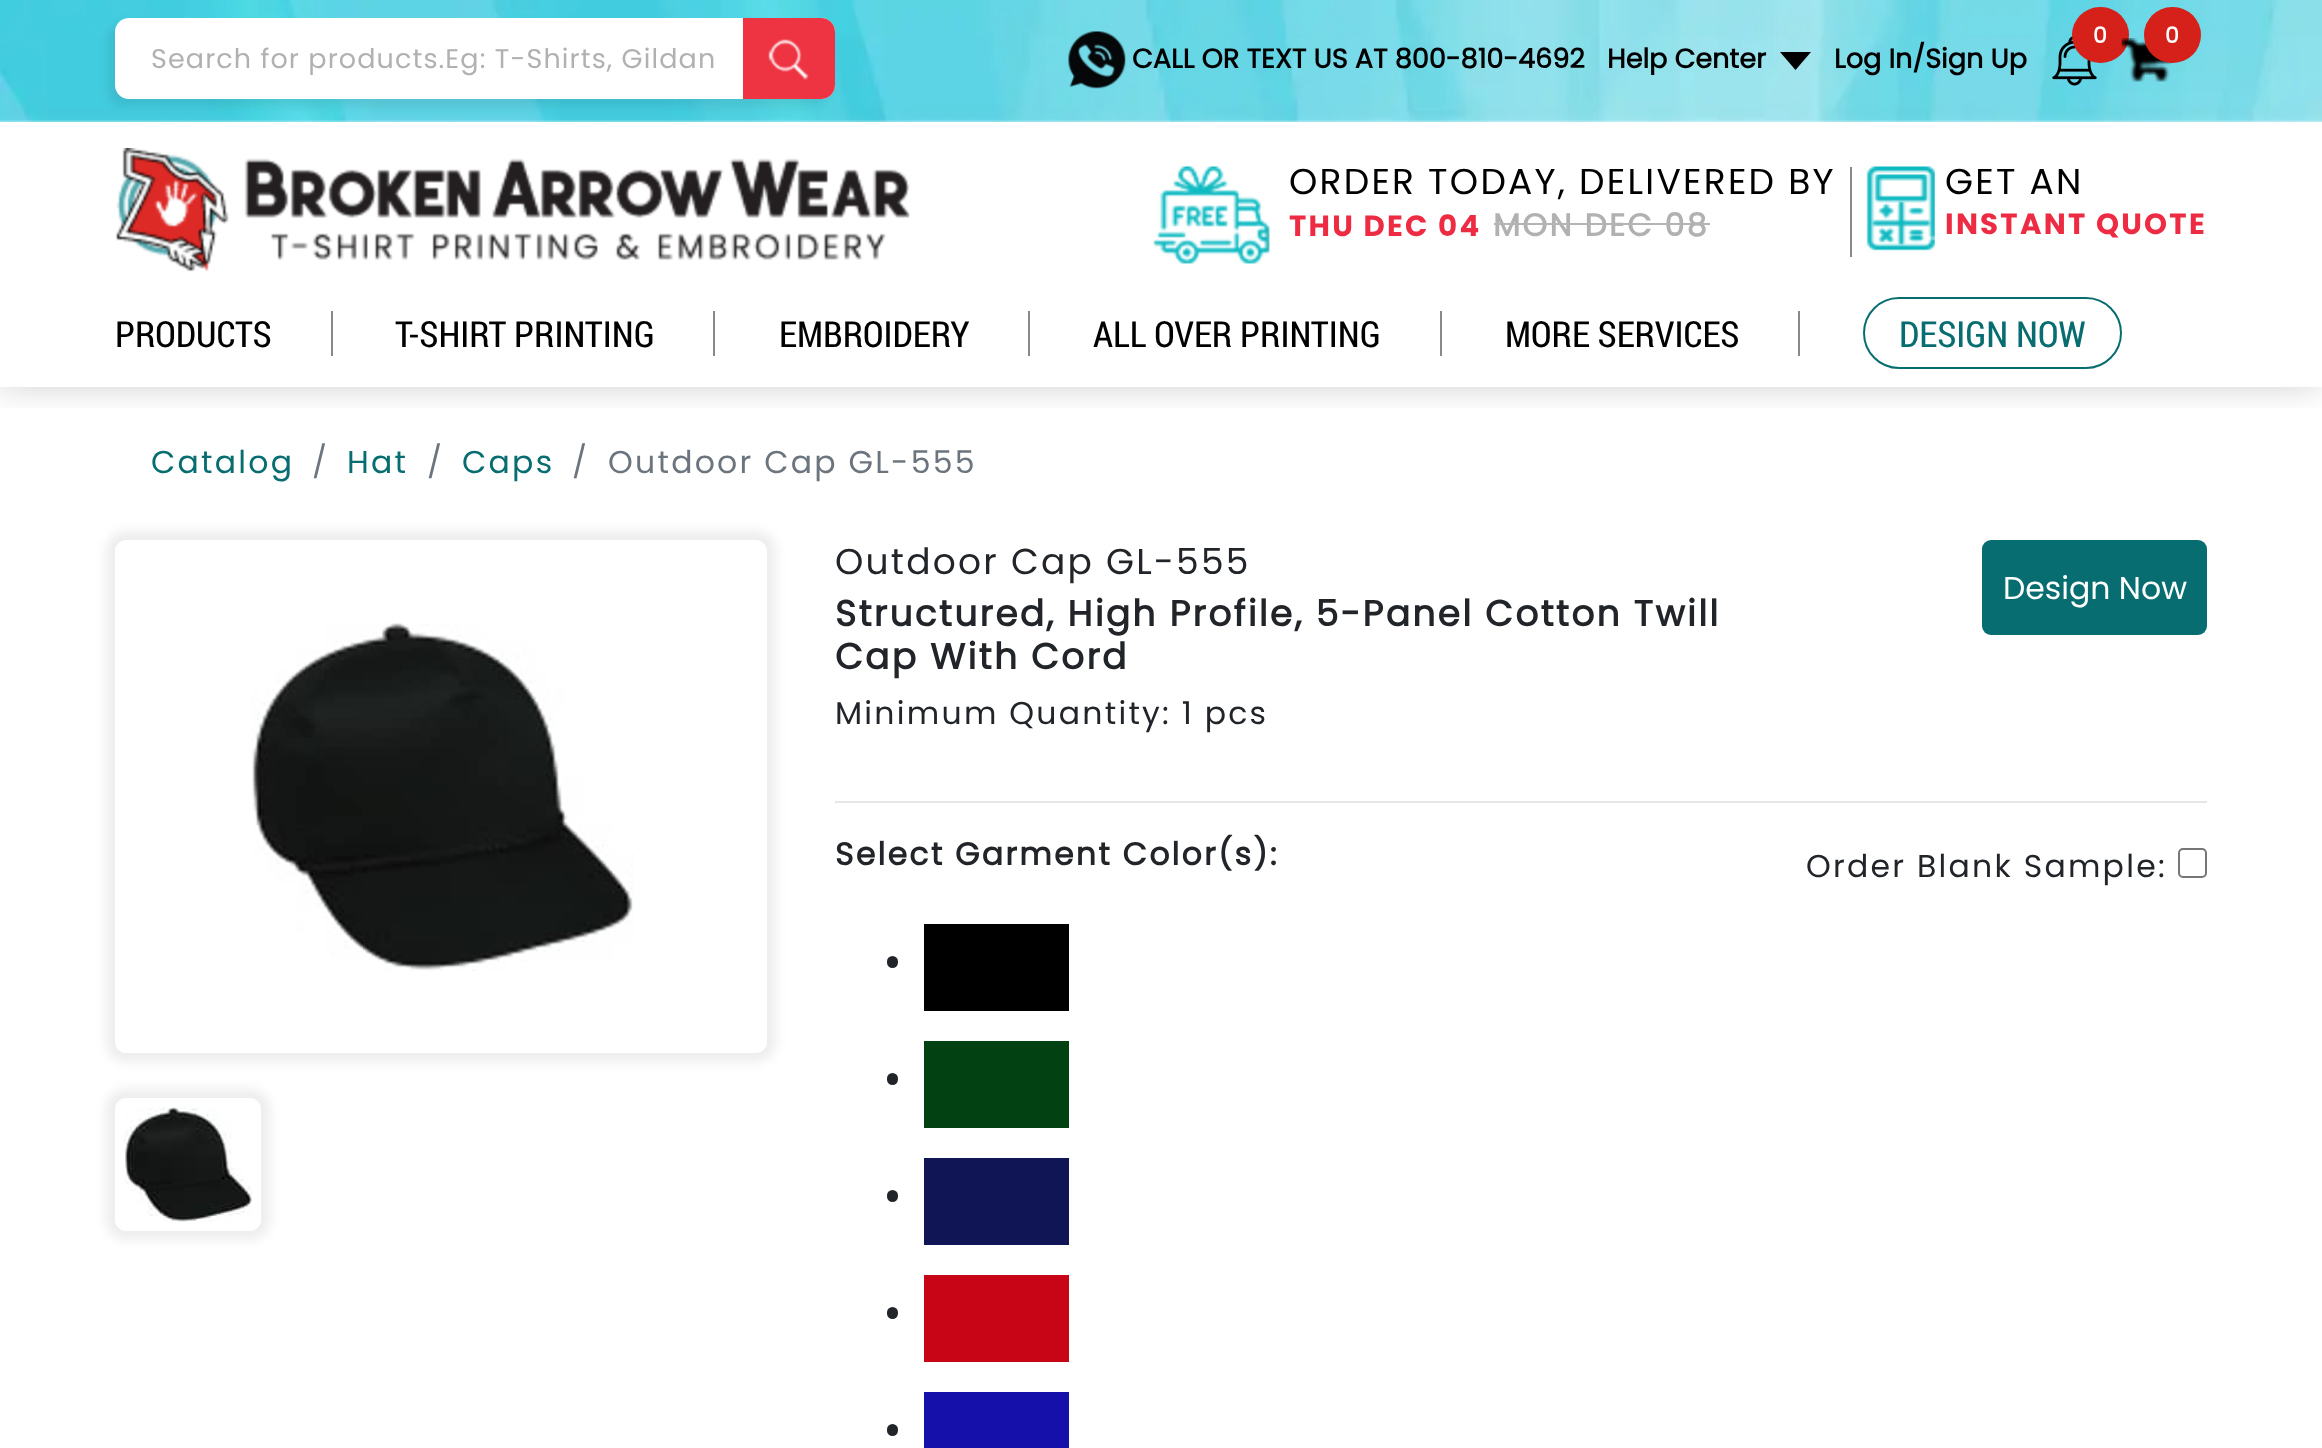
async function draw(canvas) {
  canvas.width = 2322
  canvas.height = 1448
  const ctx = canvas.getContext('2d')
  ctx.miterLimit = 4
  ctx.fontKerning = 'normal'
  async function loadImage(src) {
    const img = new Image()
    img.src = src
    await img.decode()
    return img
  }

  ctx.fillStyle = '#fff'
  ctx.fillRect(0, 0, 2322, 1448)
  ctx.save()
  ctx.beginPath()
  ctx.rect(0, 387, 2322, 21)
  ctx.clip()
  ctx.fillStyle = '#00000033'
  ctx.filter = 'blur(18px)'
  ctx.beginPath()
  ctx.rect(-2, -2, 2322, 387)
  ctx.fill()
  ctx.filter = 'none'
  ctx.restore()
  ctx.drawImage(await loadImage('image0.png'), 0, 0, 2322, 122)
  ctx.fillStyle = '#00000014'
  ctx.filter = 'blur(4.5px)'
  ctx.beginPath()
  ctx.roundRect(108, 25, 720, 81, 14)
  ctx.fill()
  ctx.filter = 'none'
  ctx.fillStyle = '#fff'
  ctx.beginPath()
  ctx.roundRect(115, 18, 720, 81, 14)
  ctx.fill()
  ctx.letterSpacing = '1.1px'
  ctx.font = '27px Poppins'
  ctx.fillStyle = '#b1b1b1'
  ctx.fillText('Search for products.Eg: T-Shirts, Gildan', 151, 68)
  ctx.fillStyle = '#ee3443'
  ctx.beginPath()
  ctx.roundRect(743, 18, 92, 81, [0, 14, 14, 0])
  ctx.fill()
  ctx.drawImage(await loadImage('image1.png'), 768, 39, 41, 41)
  ctx.drawImage(await loadImage('image2.png'), 2052, 36, 45, 50)
  ctx.fillStyle = '#d6201a'
  ctx.beginPath()
  ctx.roundRect(2072, 7, 57, 56, 28)
  ctx.fill()
  ctx.letterSpacing = '0px'
  ctx.font = 'bold 22px Poppins'
  ctx.fillStyle = '#fff'
  ctx.fillText('0', 2093, 43)
  ctx.drawImage(await loadImage('image3.png'), 2121, 38, 51, 44)
  ctx.fillStyle = '#d6201a'
  ctx.beginPath()
  ctx.roundRect(2144, 7, 57, 56, 28)
  ctx.fill()
  ctx.fillStyle = '#fff'
  ctx.fillText('0', 2165, 43)
  ctx.drawImage(await loadImage('image4.png'), 1068, 31, 58, 58)
  ctx.font = 'bold 27px Poppins'
  ctx.fillStyle = '#000'
  ctx.fillText('CALL OR TEXT US AT 800-810-4692', 1132, 68)
  ctx.fillText('Help Center', 1607, 68)
  ctx.beginPath()
  ctx.moveTo(1780, 52)
  ctx.lineTo(1811, 52)
  ctx.lineTo(1795.5, 70)
  ctx.closePath()
  ctx.fill()
  ctx.fillText('Log In/Sign Up', 1834, 68)
  ctx.drawImage(await loadImage('image5.png'), 115, 148, 795, 124)
  ctx.drawImage(await loadImage('image6.png'), 1153, 166, 117, 98)
  ctx.letterSpacing = '2.25px'
  ctx.font = '36px Poppins'
  ctx.fillText('ORDER TODAY, DELIVERED BY', 1289, 194)
  ctx.font = 'bold 29.25px "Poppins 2"'
  ctx.fillStyle = '#ed2b43'
  ctx.fillText('THU DEC 04', 1289, 236)
  ctx.font = 'bold 31.5px Poppins'
  ctx.fillStyle = '#b1b1b1'
  ctx.fillText('MON DEC 08', 1493, 236)
  ctx.fillStyle = '#b4b4b4'
  ctx.fillRect(1494, 223, 216, 2)
  ctx.fillStyle = '#898989'
  ctx.fillRect(1850, 167, 2, 90)
  ctx.drawImage(await loadImage('image7.png'), 1866, 166, 69, 85)
  ctx.font = '36px Poppins'
  ctx.fillStyle = '#000'
  ctx.fillText('GET AN', 1945, 194)
  ctx.font = 'bold 29.25px "Poppins 2"'
  ctx.fillStyle = '#ed2b43'
  ctx.fillText('INSTANT QUOTE', 1945, 234)
  ctx.letterSpacing = '0px'
  ctx.font = '36px Roboto Condensed'
  ctx.fillStyle = '#000'
  ctx.fillText('PRODUCTS', 115, 347)
  ctx.fillStyle = '#898989'
  ctx.fillRect(331, 311, 2, 45)
  ctx.fillStyle = '#000'
  ctx.fillText('T-SHIRT PRINTING', 395, 347)
  ctx.fillStyle = '#898989'
  ctx.fillRect(713, 311, 2, 45)
  ctx.fillStyle = '#000'
  ctx.fillText('EMBROIDERY', 779, 347)
  ctx.fillStyle = '#898989'
  ctx.fillRect(1028, 311, 2, 45)
  ctx.fillStyle = '#000'
  ctx.fillText('ALL OVER PRINTING', 1093, 347)
  ctx.fillStyle = '#898989'
  ctx.fillRect(1440, 311, 2, 45)
  ctx.fillStyle = '#000'
  ctx.fillText('MORE SERVICES', 1505, 347)
  ctx.fillStyle = '#898989'
  ctx.fillRect(1798, 311, 2, 45)
  ctx.beginPath()
  ctx.roundRect(1864, 298, 257, 70, 35)
  ctx.strokeStyle = '#086d70'
  ctx.lineWidth = 2
  ctx.stroke()
  ctx.fillStyle = '#086d70'
  ctx.fillText('DESIGN NOW', 1899, 347)
  ctx.letterSpacing = '2.25px'
  ctx.font = '31.5px Poppins'
  ctx.fillText('Catalog', 151, 473)
  ctx.fillStyle = '#6c757d'
  ctx.fillText('/', 312, 473)
  ctx.fillStyle = '#086d70'
  ctx.fillText('Hat', 347, 473)
  ctx.fillStyle = '#6c757d'
  ctx.fillText('/', 427, 473)
  ctx.fillStyle = '#086d70'
  ctx.fillText('Caps', 462, 473)
  ctx.fillStyle = '#6c757d'
  ctx.fillText('/', 572, 473)
  ctx.fillText('Outdoor Cap GL-555', 608, 473)
  ctx.save()
  ctx.beginPath()
  ctx.moveTo(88, 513)
  ctx.lineTo(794, 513)
  ctx.lineTo(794, 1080)
  ctx.lineTo(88, 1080)
  ctx.closePath()
  ctx.moveTo(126, 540)
  ctx.lineTo(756, 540)
  ctx.bezierCurveTo(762, 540, 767, 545, 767, 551)
  ctx.lineTo(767, 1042)
  ctx.bezierCurveTo(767, 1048, 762, 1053, 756, 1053)
  ctx.lineTo(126, 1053)
  ctx.bezierCurveTo(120, 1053, 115, 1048, 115, 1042)
  ctx.lineTo(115, 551)
  ctx.bezierCurveTo(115, 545, 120, 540, 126, 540)
  ctx.closePath()
  ctx.clip('evenodd')
  ctx.fillStyle = '#00000012'
  ctx.filter = 'blur(5.5px)'
  ctx.beginPath()
  ctx.roundRect(106, 531, 670, 531, 20)
  ctx.fill()
  ctx.filter = 'none'
  ctx.restore()
  ctx.drawImage(await loadImage('image8.png'), 252, 623, 382, 348)
  ctx.save()
  ctx.beginPath()
  ctx.moveTo(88, 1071)
  ctx.lineTo(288, 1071)
  ctx.lineTo(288, 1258)
  ctx.lineTo(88, 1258)
  ctx.closePath()
  ctx.moveTo(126, 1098)
  ctx.lineTo(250, 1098)
  ctx.bezierCurveTo(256, 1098, 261, 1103, 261, 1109)
  ctx.lineTo(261, 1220)
  ctx.bezierCurveTo(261, 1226, 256, 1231, 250, 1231)
  ctx.lineTo(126, 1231)
  ctx.bezierCurveTo(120, 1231, 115, 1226, 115, 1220)
  ctx.lineTo(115, 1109)
  ctx.bezierCurveTo(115, 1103, 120, 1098, 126, 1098)
  ctx.closePath()
  ctx.clip('evenodd')
  ctx.fillStyle = '#00000012'
  ctx.filter = 'blur(5.5px)'
  ctx.beginPath()
  ctx.roundRect(106, 1089, 164, 151, 20)
  ctx.fill()
  ctx.filter = 'none'
  ctx.restore()
  ctx.drawImage(await loadImage('image9.png'), 124, 1107, 128, 115)
  ctx.font = '36px Poppins'
  ctx.fillStyle = '#212529'
  ctx.fillText('Outdoor Cap GL-555', 835, 574)
  ctx.font = 'bold 36px Poppins'
  ctx.fillText('Structured, High Profile, 5-Panel Cotton Twill', 835, 626)
  ctx.fillText('Cap With Cord', 835, 669)
  ctx.font = '31.5px Poppins'
  ctx.fillText('Minimum Quantity: 1 pcs', 835, 724)
  ctx.fillStyle = '#086d70'
  ctx.beginPath()
  ctx.roundRect(1982, 540, 225, 95, 9)
  ctx.fill()
  ctx.letterSpacing = '0px'
  ctx.fillStyle = '#fff'
  ctx.fillText('Design Now', 2003, 599)
  ctx.fillStyle = '#e6e6e6'
  ctx.fillRect(835, 801, 1372, 2)
  ctx.letterSpacing = '2.25px'
  ctx.font = 'bold 31.5px Poppins'
  ctx.fillStyle = '#212529'
  ctx.fillText('Select Garment Color(s):', 835, 865)
  ctx.font = '31.5px Poppins'
  ctx.fillText('Order Blank Sample:', 1806, 877)
  ctx.beginPath()
  ctx.roundRect(2179, 849, 27, 28, 4)
  ctx.strokeStyle = '#767676'
  ctx.stroke()
  ctx.beginPath()
  ctx.roundRect(887, 956, 11, 12, 5.5)
  ctx.fill()
  ctx.fillStyle = '#000'
  ctx.fillRect(924, 924, 145, 87)
  ctx.fillStyle = '#212529'
  ctx.beginPath()
  ctx.roundRect(887, 1073, 11, 12, 5.5)
  ctx.fill()
  ctx.fillStyle = '#024111'
  ctx.fillRect(924, 1041, 145, 87)
  ctx.fillStyle = '#212529'
  ctx.beginPath()
  ctx.roundRect(887, 1190, 11, 12, 5.5)
  ctx.fill()
  ctx.fillStyle = '#101555'
  ctx.fillRect(924, 1158, 145, 87)
  ctx.fillStyle = '#212529'
  ctx.beginPath()
  ctx.roundRect(887, 1307, 11, 12, 5.5)
  ctx.fill()
  ctx.fillStyle = '#c70517'
  ctx.fillRect(924, 1275, 145, 87)
  ctx.fillStyle = '#212529'
  ctx.beginPath()
  ctx.roundRect(887, 1424, 11, 12, 5.5)
  ctx.fill()
  ctx.fillStyle = '#1510aa'
  ctx.fillRect(924, 1392, 145, 56)
}

draw(document.querySelector('canvas'))
